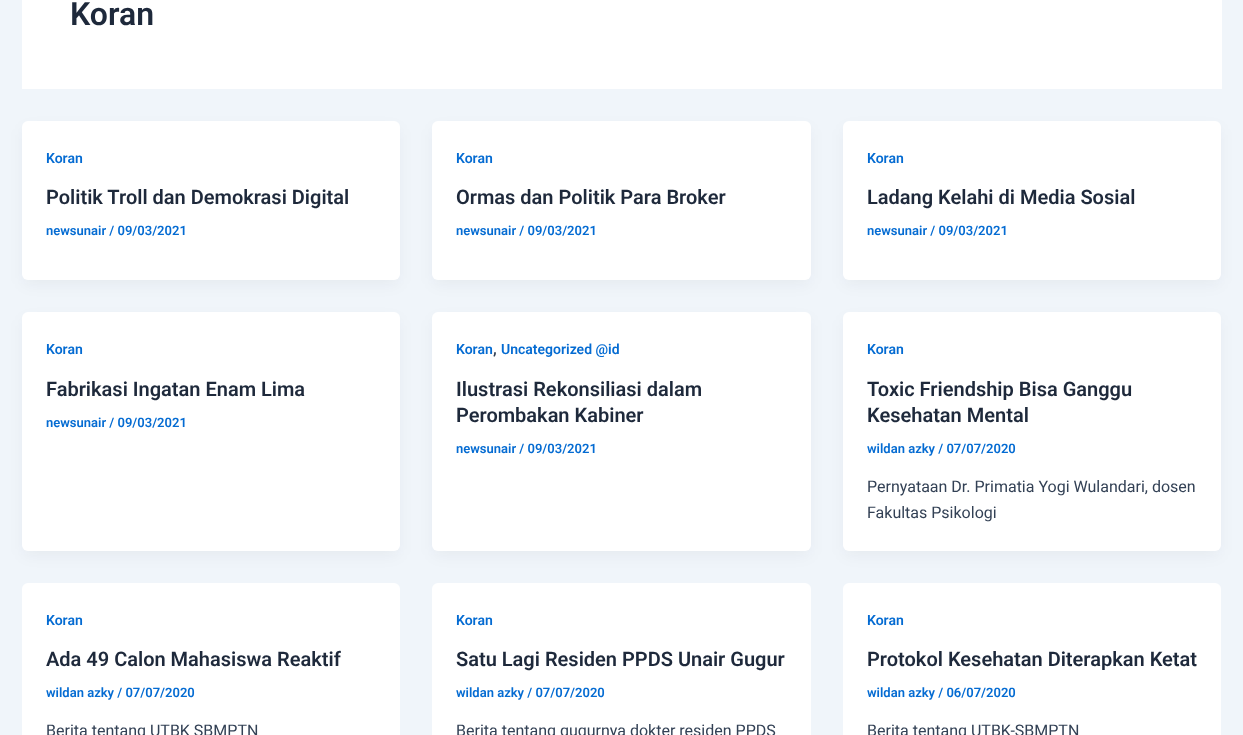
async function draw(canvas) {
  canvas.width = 1243
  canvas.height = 735
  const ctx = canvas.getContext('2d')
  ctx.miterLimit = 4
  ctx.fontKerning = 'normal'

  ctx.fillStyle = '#f0f5fa'
  ctx.fillRect(0, 0, 1243, 735)
  ctx.fillStyle = '#fff'
  ctx.fillRect(22, 0, 1200, 89)
  ctx.font = '600 32px Roboto'
  ctx.fillStyle = '#1e293b'
  ctx.fillText('Koran', 70, 25)
  ctx.fillStyle = '#1018280d'
  ctx.filter = 'blur(7.5px)'
  ctx.beginPath()
  ctx.roundRect(24, 129, 374, 155, 4)
  ctx.fill()
  ctx.filter = 'none'
  ctx.fillStyle = '#fff'
  ctx.beginPath()
  ctx.roundRect(22, 121, 378, 159, 6)
  ctx.fill()
  ctx.font = '600 14px Roboto'
  ctx.fillStyle = '#046bd2'
  ctx.fillText('Koran', 46, 163)
  ctx.font = '600 20px Roboto'
  ctx.fillStyle = '#1e293b'
  ctx.fillText('Politik Troll dan Demokrasi Digital', 46, 204)
  ctx.font = '600 13px Roboto'
  ctx.fillStyle = '#046bd2'
  ctx.fillText('newsunair / 09/03/2021', 46, 235)
  ctx.fillStyle = '#1018280d'
  ctx.filter = 'blur(7.5px)'
  ctx.beginPath()
  ctx.roundRect(434, 129, 375, 155, 4)
  ctx.fill()
  ctx.filter = 'none'
  ctx.fillStyle = '#fff'
  ctx.beginPath()
  ctx.roundRect(432, 121, 379, 159, 6)
  ctx.fill()
  ctx.font = '600 14px Roboto'
  ctx.fillStyle = '#046bd2'
  ctx.fillText('Koran', 456, 163)
  ctx.font = '600 20px Roboto'
  ctx.fillStyle = '#1e293b'
  ctx.fillText('Ormas dan Politik Para Broker', 456, 204)
  ctx.font = '600 13px Roboto'
  ctx.fillStyle = '#046bd2'
  ctx.fillText('newsunair / 09/03/2021', 456, 235)
  ctx.fillStyle = '#1018280d'
  ctx.filter = 'blur(7.5px)'
  ctx.beginPath()
  ctx.roundRect(845, 129, 374, 155, 4)
  ctx.fill()
  ctx.filter = 'none'
  ctx.fillStyle = '#fff'
  ctx.beginPath()
  ctx.roundRect(843, 121, 378, 159, 6)
  ctx.fill()
  ctx.font = '600 14px Roboto'
  ctx.fillStyle = '#046bd2'
  ctx.fillText('Koran', 867, 163)
  ctx.font = '600 20px Roboto'
  ctx.fillStyle = '#1e293b'
  ctx.fillText('Ladang Kelahi di Media Sosial', 867, 204)
  ctx.font = '600 13px Roboto'
  ctx.fillStyle = '#046bd2'
  ctx.fillText('newsunair / 09/03/2021', 867, 235)
  ctx.fillStyle = '#1018280d'
  ctx.filter = 'blur(7.5px)'
  ctx.beginPath()
  ctx.roundRect(24, 320, 374, 235, 4)
  ctx.fill()
  ctx.filter = 'none'
  ctx.fillStyle = '#fff'
  ctx.beginPath()
  ctx.roundRect(22, 312, 378, 239, 6)
  ctx.fill()
  ctx.font = '600 14px Roboto'
  ctx.fillStyle = '#046bd2'
  ctx.fillText('Koran', 46, 354)
  ctx.font = '600 20px Roboto'
  ctx.fillStyle = '#1e293b'
  ctx.fillText('Fabrikasi Ingatan Enam Lima', 46, 396)
  ctx.font = '600 13px Roboto'
  ctx.fillStyle = '#046bd2'
  ctx.fillText('newsunair / 09/03/2021', 46, 427)
  ctx.fillStyle = '#1018280d'
  ctx.filter = 'blur(7.5px)'
  ctx.beginPath()
  ctx.roundRect(434, 320, 375, 235, 4)
  ctx.fill()
  ctx.filter = 'none'
  ctx.fillStyle = '#fff'
  ctx.beginPath()
  ctx.roundRect(432, 312, 379, 239, 6)
  ctx.fill()
  ctx.font = '600 14px Roboto'
  ctx.fillStyle = '#046bd2'
  ctx.fillText('Koran', 456, 354)
  ctx.font = '600 16px Roboto'
  ctx.fillStyle = '#334155'
  ctx.fillText(',', 493, 354)
  ctx.font = '600 14px Roboto'
  ctx.fillStyle = '#046bd2'
  ctx.fillText('Uncategorized @id', 501, 354)
  ctx.font = '600 20px Roboto'
  ctx.fillStyle = '#1e293b'
  ctx.fillText('Ilustrasi Rekonsiliasi dalam', 456, 396)
  ctx.fillText('Perombakan Kabiner', 456, 422)
  ctx.font = '600 13px Roboto'
  ctx.fillStyle = '#046bd2'
  ctx.fillText('newsunair / 09/03/2021', 456, 453)
  ctx.fillStyle = '#1018280d'
  ctx.filter = 'blur(7.5px)'
  ctx.beginPath()
  ctx.roundRect(845, 320, 374, 235, 4)
  ctx.fill()
  ctx.filter = 'none'
  ctx.fillStyle = '#fff'
  ctx.beginPath()
  ctx.roundRect(843, 312, 378, 239, 6)
  ctx.fill()
  ctx.font = '600 14px Roboto'
  ctx.fillStyle = '#046bd2'
  ctx.fillText('Koran', 867, 354)
  ctx.font = '600 20px Roboto'
  ctx.fillStyle = '#1e293b'
  ctx.fillText('Toxic Friendship Bisa Ganggu', 867, 396)
  ctx.fillText('Kesehatan Mental', 867, 422)
  ctx.font = '600 13px Roboto'
  ctx.fillStyle = '#046bd2'
  ctx.fillText('wildan azky / 07/07/2020', 867, 453)
  ctx.font = '16px Roboto'
  ctx.fillStyle = '#334155'
  ctx.fillText('Pernyataan Dr. Primatia Yogi Wulandari, dosen', 867, 492)
  ctx.fillText('Fakultas Psikologi', 867, 518)
  ctx.fillStyle = '#fff'
  ctx.beginPath()
  ctx.roundRect(22, 583, 378, 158, 6)
  ctx.fill()
  ctx.font = '600 14px Roboto'
  ctx.fillStyle = '#046bd2'
  ctx.fillText('Koran', 46, 625)
  ctx.font = '600 20px Roboto'
  ctx.fillStyle = '#1e293b'
  ctx.fillText('Ada 49 Calon Mahasiswa Reaktif', 46, 666)
  ctx.font = '600 13px Roboto'
  ctx.fillStyle = '#046bd2'
  ctx.fillText('wildan azky / 07/07/2020', 46, 697)
  ctx.font = '16px Roboto'
  ctx.fillStyle = '#334155'
  ctx.fillText('Berita tentang UTBK SBMPTN', 46, 736)
  ctx.fillStyle = '#fff'
  ctx.beginPath()
  ctx.roundRect(432, 583, 379, 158, 6)
  ctx.fill()
  ctx.font = '600 14px Roboto'
  ctx.fillStyle = '#046bd2'
  ctx.fillText('Koran', 456, 625)
  ctx.font = '600 20px Roboto'
  ctx.fillStyle = '#1e293b'
  ctx.fillText('Satu Lagi Residen PPDS Unair Gugur', 456, 666)
  ctx.font = '600 13px Roboto'
  ctx.fillStyle = '#046bd2'
  ctx.fillText('wildan azky / 07/07/2020', 456, 697)
  ctx.font = '16px Roboto'
  ctx.fillStyle = '#334155'
  ctx.fillText('Berita tentang gugurnya dokter residen PPDS', 456, 736)
  ctx.fillStyle = '#fff'
  ctx.beginPath()
  ctx.roundRect(843, 583, 378, 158, 6)
  ctx.fill()
  ctx.font = '600 14px Roboto'
  ctx.fillStyle = '#046bd2'
  ctx.fillText('Koran', 867, 625)
  ctx.font = '600 20px Roboto'
  ctx.fillStyle = '#1e293b'
  ctx.fillText('Protokol Kesehatan Diterapkan Ketat', 867, 666)
  ctx.font = '600 13px Roboto'
  ctx.fillStyle = '#046bd2'
  ctx.fillText('wildan azky / 06/07/2020', 867, 697)
  ctx.font = '16px Roboto'
  ctx.fillStyle = '#334155'
  ctx.fillText('Berita tentang UTBK-SBMPTN', 867, 736)
}

draw(document.querySelector('canvas'))
